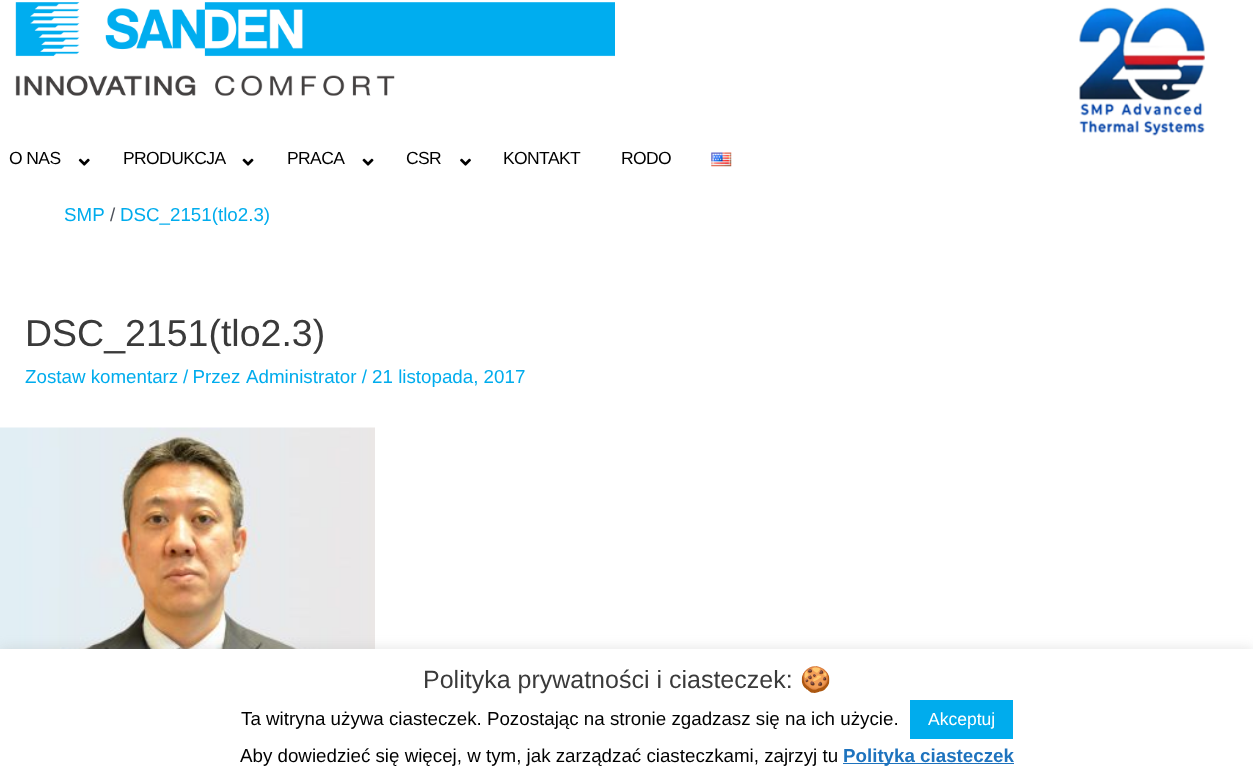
async function draw(canvas) {
  canvas.width = 1253
  canvas.height = 784
  const ctx = canvas.getContext('2d')
  ctx.miterLimit = 4
  ctx.fontKerning = 'normal'
  async function loadImage(src) {
    const img = new Image()
    img.src = src
    await img.decode()
    return img
  }

  ctx.fillStyle = '#fff'
  ctx.fillRect(0, 0, 1253, 784)
  ctx.drawImage(await loadImage('image0.png'), 15, 2, 600, 94)
  ctx.drawImage(await loadImage('image1.png'), 1079, 7, 126, 129)
  ctx.letterSpacing = '-0.6px'
  ctx.font = '17.5px Liberation Sans'
  ctx.fillStyle = '#000'
  ctx.fillText('O NAS', 9, 164)
  ctx.drawImage(await loadImage('image2.png'), 78, 158, 12, 8)
  ctx.fillText('PRODUKCJA', 123, 164)
  ctx.drawImage(await loadImage('image3.png'), 242, 158, 12, 8)
  ctx.fillText('PRACA', 287, 164)
  ctx.drawImage(await loadImage('image3.png'), 362, 158, 12, 8)
  ctx.fillText('CSR', 406, 164)
  ctx.drawImage(await loadImage('image4.png'), 460, 158, 11, 8)
  ctx.fillText('KONTAKT', 503, 164)
  ctx.fillText('RODO', 621, 164)
  ctx.drawImage(await loadImage('image5.png'), 711, 152, 21, 15)
  ctx.letterSpacing = '0px'
  ctx.font = '18.75px Liberation Sans'
  ctx.fillStyle = '#00aced'
  ctx.fillText('SMP', 64, 221)
  ctx.fillStyle = '#4b4f58'
  ctx.fillText('/', 110, 221)
  ctx.fillStyle = '#00aced'
  ctx.fillText('DSC_2151(tlo2.3)', 120, 221)
  ctx.font = '37.5px Liberation Sans'
  ctx.fillStyle = '#3a3a3a'
  ctx.fillText('DSC_2151(tlo2.3)', 25, 346)
  ctx.font = '18.75px Liberation Sans'
  ctx.fillStyle = '#00aced'
  ctx.fillText('Zostaw komentarz', 25, 383)
  ctx.wordSpacing = '-1px'
  ctx.fillText('/ Przez', 183, 383)
  ctx.wordSpacing = '0px'
  ctx.fillText('Administrator / 21 listopada, 2017', 246, 383)
  ctx.drawImage(await loadImage('image6.png'), 0, 427, 375, 222)
  ctx.fillStyle = '#acabab4d'
  ctx.filter = 'blur(6px)'
  ctx.beginPath()
  ctx.rect(0, 648, 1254, 136)
  ctx.fill()
  ctx.filter = 'none'
  ctx.fillStyle = '#fff'
  ctx.fillRect(0, 649, 1253, 135)
  ctx.font = '25px Liberation Sans'
  ctx.fillStyle = '#3a3a3a'
  ctx.fillText('Polityka prywatności i ciasteczek:', 423, 688)
  ctx.font = '25px Noto Color Emoji'
  ctx.fillText('🍪', 800, 688)
  ctx.font = '18.75px Liberation Sans'
  ctx.fillStyle = '#000'
  ctx.fillText('Ta witryna używa ciasteczek. Pozostając na stronie zgadzasz się na ich użycie.', 241, 725)
  ctx.fillStyle = '#00aced'
  ctx.fillRect(910, 700, 103, 39)
  ctx.font = '17.5px Liberation Sans'
  ctx.fillStyle = '#fff'
  ctx.fillText('Akceptuj', 928, 725)
  ctx.font = '18.75px Liberation Sans'
  ctx.fillStyle = '#000'
  ctx.fillText('Aby dowiedzieć się więcej, w tym, jak zarządzać ciasteczkami, zajrzyj tu', 240, 762)
  ctx.fillStyle = '#1e73be'
  ctx.fillRect(843, 763, 171, 1)
  ctx.font = 'bold 18.75px Liberation Sans'
  ctx.fillText('Polityka ciasteczek', 843, 762)
}

draw(document.querySelector('canvas'))
